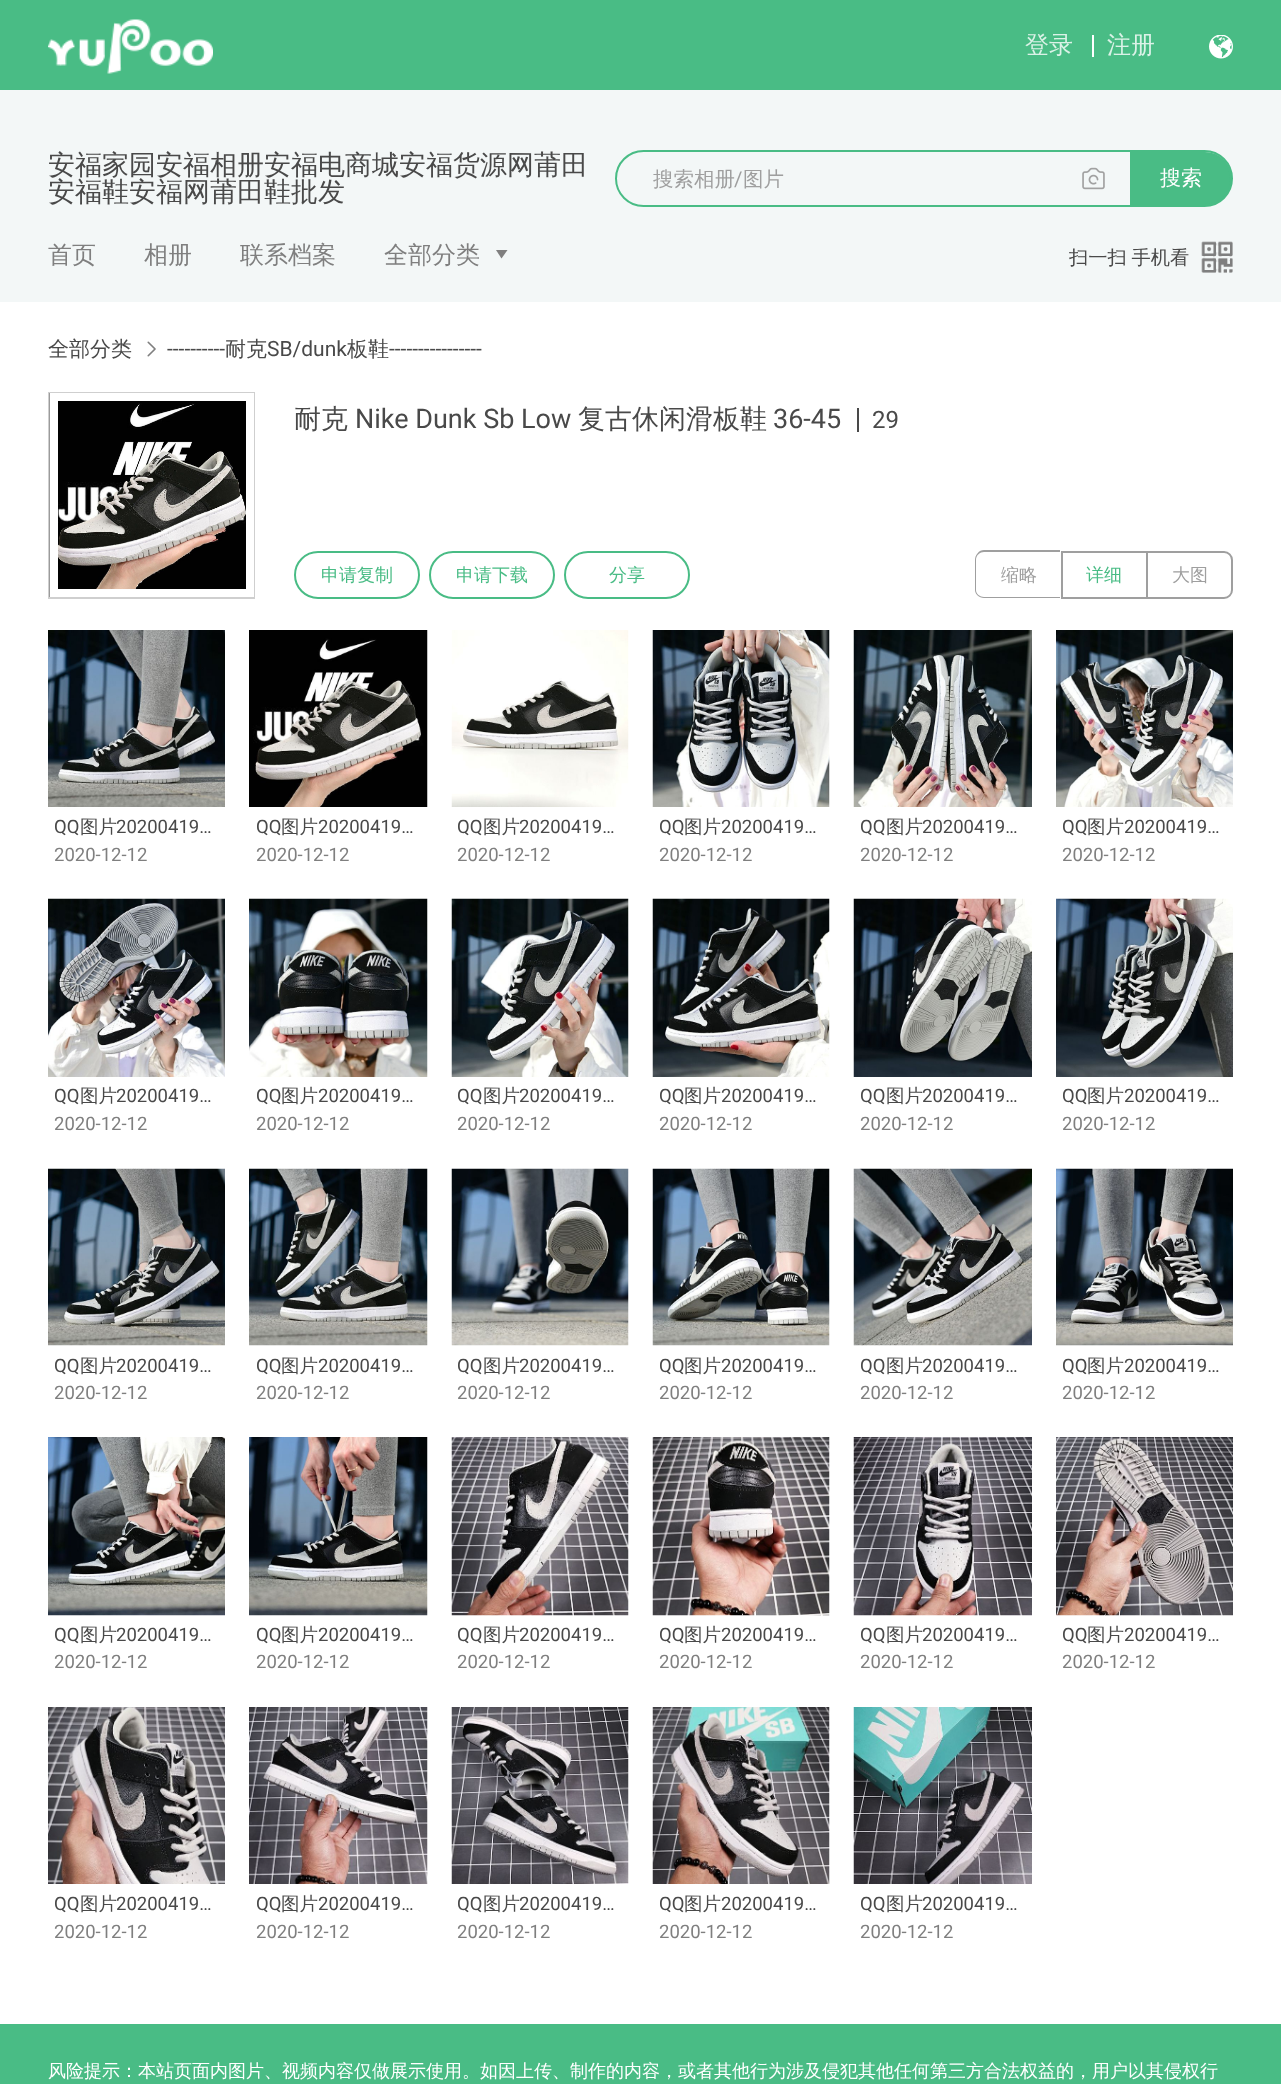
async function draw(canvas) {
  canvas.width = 1281
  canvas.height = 2084
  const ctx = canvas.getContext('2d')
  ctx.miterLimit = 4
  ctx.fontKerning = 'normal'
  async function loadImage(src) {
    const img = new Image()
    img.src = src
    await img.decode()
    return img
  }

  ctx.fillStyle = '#fff'
  ctx.fillRect(0, 0, 1281, 2084)
  ctx.fillStyle = '#49bc85'
  ctx.fillRect(0, 0, 1281, 90)
  ctx.drawImage(await loadImage('image0.png'), 48, 19, 165, 55)
  ctx.font = '500 24px WenQuanYi Zen Hei'
  ctx.fillStyle = '#dbf2e7'
  ctx.fillText('登录', 1025, 53)
  ctx.fillStyle = '#fff'
  ctx.fillRect(1092, 35, 2, 22)
  ctx.fillStyle = '#dbf2e7'
  ctx.fillText('注册', 1107, 53)
  ctx.drawImage(await loadImage('image1.png'), 1209, 35, 24, 24)
  ctx.fillStyle = '#f3f7f7'
  ctx.fillRect(0, 90, 1281, 212)
  ctx.font = '500 27px WenQuanYi Zen Hei'
  ctx.fillStyle = '#494949'
  ctx.fillText('安福家园安福相册安福电商城安福货源网莆田', 48, 174)
  ctx.fillText('安福鞋安福网莆田鞋批发', 48, 201)
  ctx.beginPath()
  ctx.roundRect(616, 151, 616, 55, 27.5)
  ctx.strokeStyle = '#49bc85'
  ctx.lineWidth = 2
  ctx.stroke()
  ctx.font = '500 20.5px WenQuanYi Zen Hei'
  ctx.fillStyle = '#9f9f9f'
  ctx.fillText('搜索相册', 653, 186)
  ctx.font = '20.5px Roboto'
  ctx.fillText('/', 734, 186)
  ctx.font = '500 20.5px WenQuanYi Zen Hei'
  ctx.fillText('图片', 743, 186)
  ctx.drawImage(await loadImage('image2.png'), 1082, 167, 23, 23)
  ctx.fillStyle = '#49bc85'
  ctx.beginPath()
  ctx.roundRect(1131, 153, 100, 52, [0, 26, 26, 0])
  ctx.fill()
  ctx.stroke()
  ctx.font = '21px Noto Sans'
  ctx.fillStyle = '#fff'
  ctx.fillText('搜', 1160, 185)
  ctx.font = '500 21px WenQuanYi Zen Hei'
  ctx.fillText('索', 1181, 185)
  ctx.font = '500 24px WenQuanYi Zen Hei'
  ctx.fillStyle = '#7f7f7f'
  ctx.fillText('首页', 48, 263)
  ctx.fillText('相册', 144, 263)
  ctx.fillText('联系档案', 240, 263)
  ctx.fillText('全部分类', 384, 263)
  ctx.beginPath()
  ctx.moveTo(501.5, 258.5)
  ctx.lineTo(496, 250)
  ctx.lineTo(507.5, 250)
  ctx.closePath()
  ctx.fill()
  ctx.wordSpacing = '-1px'
  ctx.font = '500 19.25px WenQuanYi Zen Hei'
  ctx.fillStyle = '#494949'
  ctx.fillText('扫一扫 手机看', 1069, 264)
  ctx.drawImage(await loadImage('image3.png'), 1201, 241, 32, 32)
  ctx.wordSpacing = '0px'
  ctx.font = '500 21px WenQuanYi Zen Hei'
  ctx.fillText('全部分类', 48, 356)
  ctx.drawImage(await loadImage('image4.png'), 147, 341, 9, 16)
  ctx.font = '21px Roboto'
  ctx.fillText('----------', 167, 356)
  ctx.font = '500 21px WenQuanYi Zen Hei'
  ctx.fillText('耐克', 225, 356)
  ctx.font = '21px Roboto'
  ctx.fillText('SB/dunk', 267, 356)
  ctx.font = '500 21px WenQuanYi Zen Hei'
  ctx.fillText('板鞋', 347, 356)
  ctx.font = '21px Roboto'
  ctx.fillText('----------------', 389, 356)
  ctx.strokeStyle = '#cfcfcf'
  ctx.strokeRect(49, 393, 205, 205)
  ctx.drawImage(await loadImage('image5.png'), 49, 393, 197, 204)
  ctx.strokeStyle = '#fff'
  ctx.lineWidth = 8
  ctx.strokeRect(54, 397, 196, 196)
  ctx.font = '500 27px WenQuanYi Zen Hei'
  ctx.fillText('耐克', 294, 428)
  ctx.font = '27px Roboto'
  ctx.fillText('Nike Dunk Sb Low', 355, 428)
  ctx.font = '500 27px WenQuanYi Zen Hei'
  ctx.fillText('复古休闲滑板鞋', 578, 428)
  ctx.font = '27px Roboto'
  ctx.fillText('36-45', 773, 428)
  ctx.fillRect(857, 408, 2, 24)
  ctx.font = '24px Roboto'
  ctx.fillText('29', 872, 428)
  ctx.beginPath()
  ctx.roundRect(295, 552, 124, 46, 23)
  ctx.strokeStyle = '#49bc85'
  ctx.lineWidth = 2
  ctx.stroke()
  ctx.font = '500 18px WenQuanYi Zen Hei'
  ctx.fillStyle = '#49bc85'
  ctx.fillText('申请复制', 321, 581)
  ctx.beginPath()
  ctx.roundRect(430, 552, 124, 46, 23)
  ctx.stroke()
  ctx.fillText('申请下载', 456, 581)
  ctx.beginPath()
  ctx.roundRect(565, 552, 124, 46, 23)
  ctx.stroke()
  ctx.fillText('分享', 609, 581)
  ctx.fillStyle = '#9f9f9f'
  ctx.beginPath()
  ctx.moveTo(984, 550)
  ctx.lineTo(1060, 550)
  ctx.lineTo(1060, 598)
  ctx.lineTo(984, 598)
  ctx.bezierCurveTo(979, 598, 975, 594, 975, 590)
  ctx.lineTo(975, 560)
  ctx.bezierCurveTo(975, 555, 979, 550, 984, 550)
  ctx.closePath()
  ctx.moveTo(984, 552)
  ctx.lineTo(1060, 552)
  ctx.lineTo(1060, 597)
  ctx.lineTo(984, 597)
  ctx.bezierCurveTo(980, 597, 976, 594, 976, 590)
  ctx.lineTo(976, 560)
  ctx.bezierCurveTo(976, 555, 980, 552, 984, 552)
  ctx.closePath()
  ctx.fill('evenodd')
  ctx.fillText('缩略', 1001, 581)
  ctx.fillRect(1061, 551, 85, 2)
  ctx.fillRect(1061, 597, 85, 2)
  ctx.fillRect(1061, 551, 2, 48)
  ctx.fillStyle = '#49bc85'
  ctx.fillText('详细', 1086, 581)
  ctx.beginPath()
  ctx.roundRect(1147, 552, 85, 46, [0, 8, 8, 0])
  ctx.strokeStyle = '#9f9f9f'
  ctx.stroke()
  ctx.fillStyle = '#9f9f9f'
  ctx.fillText('大图', 1172, 581)
  ctx.drawImage(await loadImage('image6.png'), 48, 630, 177, 177)
  ctx.font = '18.5px Roboto'
  ctx.fillStyle = '#494949'
  ctx.fillText('QQ', 54, 833)
  ctx.font = '500 18.5px WenQuanYi Zen Hei'
  ctx.fillText('图片', 80, 833)
  ctx.font = '18.5px Roboto'
  ctx.fillText('20200419…', 116, 833)
  ctx.fillStyle = '#7f7f7f'
  ctx.fillText('2020-12-12', 54, 861)
  ctx.drawImage(await loadImage('image7.png'), 249, 630, 179, 177)
  ctx.save()
  ctx.beginPath()
  ctx.rect(257, 815, 163, 27)
  ctx.clip()
  ctx.fillStyle = '#494949'
  ctx.fillText('QQ', 256, 833)
  ctx.restore()
  ctx.font = '500 18.5px WenQuanYi Zen Hei'
  ctx.fillStyle = '#494949'
  ctx.fillText('图片', 281, 833)
  ctx.font = '18.5px Roboto'
  ctx.fillText('20200419…', 318, 833)
  ctx.fillStyle = '#7f7f7f'
  ctx.fillText('2020-12-12', 256, 861)
  ctx.drawImage(await loadImage('image8.png'), 451, 630, 178, 177)
  ctx.fillStyle = '#494949'
  ctx.fillText('QQ', 457, 833)
  ctx.font = '500 18.5px WenQuanYi Zen Hei'
  ctx.fillText('图片', 483, 833)
  ctx.font = '18.5px Roboto'
  ctx.fillText('20200419…', 519, 833)
  ctx.fillStyle = '#7f7f7f'
  ctx.fillText('2020-12-12', 457, 861)
  ctx.drawImage(await loadImage('image9.png'), 652, 630, 178, 177)
  ctx.fillStyle = '#494949'
  ctx.fillText('QQ', 659, 833)
  ctx.font = '500 18.5px WenQuanYi Zen Hei'
  ctx.fillText('图片', 684, 833)
  ctx.font = '18.5px Roboto'
  ctx.fillText('20200419…', 721, 833)
  ctx.fillStyle = '#7f7f7f'
  ctx.fillText('2020-12-12', 659, 861)
  ctx.drawImage(await loadImage('image10.png'), 853, 630, 179, 177)
  ctx.fillStyle = '#494949'
  ctx.fillText('QQ', 860, 833)
  ctx.font = '500 18.5px WenQuanYi Zen Hei'
  ctx.fillText('图片', 886, 833)
  ctx.font = '18.5px Roboto'
  ctx.fillText('20200419…', 922, 833)
  ctx.fillStyle = '#7f7f7f'
  ctx.fillText('2020-12-12', 860, 861)
  ctx.drawImage(await loadImage('image11.png'), 1056, 630, 177, 177)
  ctx.fillStyle = '#494949'
  ctx.fillText('QQ', 1062, 833)
  ctx.font = '500 18.5px WenQuanYi Zen Hei'
  ctx.fillText('图片', 1087, 833)
  ctx.font = '18.5px Roboto'
  ctx.fillText('20200419…', 1124, 833)
  ctx.fillStyle = '#7f7f7f'
  ctx.fillText('2020-12-12', 1062, 861)
  ctx.drawImage(await loadImage('image12.png'), 48, 898, 177, 179)
  ctx.fillStyle = '#494949'
  ctx.fillText('QQ', 54, 1102)
  ctx.font = '500 18.5px WenQuanYi Zen Hei'
  ctx.fillText('图片', 80, 1102)
  ctx.font = '18.5px Roboto'
  ctx.fillText('20200419…', 116, 1102)
  ctx.fillStyle = '#7f7f7f'
  ctx.fillText('2020-12-12', 54, 1130)
  ctx.drawImage(await loadImage('image13.png'), 249, 898, 179, 179)
  ctx.save()
  ctx.beginPath()
  ctx.rect(257, 1083, 163, 27)
  ctx.clip()
  ctx.fillStyle = '#494949'
  ctx.fillText('QQ', 256, 1102)
  ctx.restore()
  ctx.font = '500 18.5px WenQuanYi Zen Hei'
  ctx.fillStyle = '#494949'
  ctx.fillText('图片', 281, 1102)
  ctx.font = '18.5px Roboto'
  ctx.fillText('20200419…', 318, 1102)
  ctx.fillStyle = '#7f7f7f'
  ctx.fillText('2020-12-12', 256, 1130)
  ctx.drawImage(await loadImage('image14.png'), 451, 898, 178, 179)
  ctx.fillStyle = '#494949'
  ctx.fillText('QQ', 457, 1102)
  ctx.font = '500 18.5px WenQuanYi Zen Hei'
  ctx.fillText('图片', 483, 1102)
  ctx.font = '18.5px Roboto'
  ctx.fillText('20200419…', 519, 1102)
  ctx.fillStyle = '#7f7f7f'
  ctx.fillText('2020-12-12', 457, 1130)
  ctx.drawImage(await loadImage('image15.png'), 652, 898, 178, 179)
  ctx.fillStyle = '#494949'
  ctx.fillText('QQ', 659, 1102)
  ctx.font = '500 18.5px WenQuanYi Zen Hei'
  ctx.fillText('图片', 684, 1102)
  ctx.font = '18.5px Roboto'
  ctx.fillText('20200419…', 721, 1102)
  ctx.fillStyle = '#7f7f7f'
  ctx.fillText('2020-12-12', 659, 1130)
  ctx.drawImage(await loadImage('image16.png'), 853, 898, 179, 179)
  ctx.fillStyle = '#494949'
  ctx.fillText('QQ', 860, 1102)
  ctx.font = '500 18.5px WenQuanYi Zen Hei'
  ctx.fillText('图片', 886, 1102)
  ctx.font = '18.5px Roboto'
  ctx.fillText('20200419…', 922, 1102)
  ctx.fillStyle = '#7f7f7f'
  ctx.fillText('2020-12-12', 860, 1130)
  ctx.drawImage(await loadImage('image17.png'), 1056, 898, 177, 179)
  ctx.fillStyle = '#494949'
  ctx.fillText('QQ', 1062, 1102)
  ctx.font = '500 18.5px WenQuanYi Zen Hei'
  ctx.fillText('图片', 1087, 1102)
  ctx.font = '18.5px Roboto'
  ctx.fillText('20200419…', 1124, 1102)
  ctx.fillStyle = '#7f7f7f'
  ctx.fillText('2020-12-12', 1062, 1130)
  ctx.drawImage(await loadImage('image18.png'), 48, 1168, 177, 178)
  ctx.fillStyle = '#494949'
  ctx.fillText('QQ', 54, 1372)
  ctx.font = '500 18.5px WenQuanYi Zen Hei'
  ctx.fillText('图片', 80, 1372)
  ctx.font = '18.5px Roboto'
  ctx.fillText('20200419…', 116, 1372)
  ctx.fillStyle = '#7f7f7f'
  ctx.fillText('2020-12-12', 54, 1399)
  ctx.drawImage(await loadImage('image19.png'), 249, 1168, 179, 178)
  ctx.save()
  ctx.beginPath()
  ctx.rect(257, 1352, 163, 28)
  ctx.clip()
  ctx.fillStyle = '#494949'
  ctx.fillText('QQ', 256, 1372)
  ctx.restore()
  ctx.font = '500 18.5px WenQuanYi Zen Hei'
  ctx.fillStyle = '#494949'
  ctx.fillText('图片', 281, 1372)
  ctx.font = '18.5px Roboto'
  ctx.fillText('20200419…', 318, 1372)
  ctx.fillStyle = '#7f7f7f'
  ctx.fillText('2020-12-12', 256, 1399)
  ctx.drawImage(await loadImage('image20.png'), 451, 1168, 178, 178)
  ctx.fillStyle = '#494949'
  ctx.fillText('QQ', 457, 1372)
  ctx.font = '500 18.5px WenQuanYi Zen Hei'
  ctx.fillText('图片', 483, 1372)
  ctx.font = '18.5px Roboto'
  ctx.fillText('20200419…', 519, 1372)
  ctx.fillStyle = '#7f7f7f'
  ctx.fillText('2020-12-12', 457, 1399)
  ctx.drawImage(await loadImage('image21.png'), 652, 1168, 178, 178)
  ctx.fillStyle = '#494949'
  ctx.fillText('QQ', 659, 1372)
  ctx.font = '500 18.5px WenQuanYi Zen Hei'
  ctx.fillText('图片', 684, 1372)
  ctx.font = '18.5px Roboto'
  ctx.fillText('20200419…', 721, 1372)
  ctx.fillStyle = '#7f7f7f'
  ctx.fillText('2020-12-12', 659, 1399)
  ctx.drawImage(await loadImage('image22.png'), 853, 1168, 179, 178)
  ctx.fillStyle = '#494949'
  ctx.fillText('QQ', 860, 1372)
  ctx.font = '500 18.5px WenQuanYi Zen Hei'
  ctx.fillText('图片', 886, 1372)
  ctx.font = '18.5px Roboto'
  ctx.fillText('20200419…', 922, 1372)
  ctx.fillStyle = '#7f7f7f'
  ctx.fillText('2020-12-12', 860, 1399)
  ctx.drawImage(await loadImage('image23.png'), 1056, 1168, 177, 178)
  ctx.fillStyle = '#494949'
  ctx.fillText('QQ', 1062, 1372)
  ctx.font = '500 18.5px WenQuanYi Zen Hei'
  ctx.fillText('图片', 1087, 1372)
  ctx.font = '18.5px Roboto'
  ctx.fillText('20200419…', 1124, 1372)
  ctx.fillStyle = '#7f7f7f'
  ctx.fillText('2020-12-12', 1062, 1399)
  ctx.drawImage(await loadImage('image24.png'), 48, 1437, 177, 179)
  ctx.fillStyle = '#494949'
  ctx.fillText('QQ', 54, 1641)
  ctx.font = '500 18.5px WenQuanYi Zen Hei'
  ctx.fillText('图片', 80, 1641)
  ctx.font = '18.5px Roboto'
  ctx.fillText('20200419…', 116, 1641)
  ctx.fillStyle = '#7f7f7f'
  ctx.fillText('2020-12-12', 54, 1668)
  ctx.drawImage(await loadImage('image25.png'), 249, 1437, 179, 179)
  ctx.save()
  ctx.beginPath()
  ctx.rect(257, 1622, 163, 27)
  ctx.clip()
  ctx.fillStyle = '#494949'
  ctx.fillText('QQ', 256, 1641)
  ctx.restore()
  ctx.font = '500 18.5px WenQuanYi Zen Hei'
  ctx.fillStyle = '#494949'
  ctx.fillText('图片', 281, 1641)
  ctx.font = '18.5px Roboto'
  ctx.fillText('20200419…', 318, 1641)
  ctx.fillStyle = '#7f7f7f'
  ctx.fillText('2020-12-12', 256, 1668)
  ctx.drawImage(await loadImage('image26.png'), 451, 1437, 178, 179)
  ctx.fillStyle = '#494949'
  ctx.fillText('QQ', 457, 1641)
  ctx.font = '500 18.5px WenQuanYi Zen Hei'
  ctx.fillText('图片', 483, 1641)
  ctx.font = '18.5px Roboto'
  ctx.fillText('20200419…', 519, 1641)
  ctx.fillStyle = '#7f7f7f'
  ctx.fillText('2020-12-12', 457, 1668)
  ctx.drawImage(await loadImage('image27.png'), 652, 1437, 178, 179)
  ctx.fillStyle = '#494949'
  ctx.fillText('QQ', 659, 1641)
  ctx.font = '500 18.5px WenQuanYi Zen Hei'
  ctx.fillText('图片', 684, 1641)
  ctx.font = '18.5px Roboto'
  ctx.fillText('20200419…', 721, 1641)
  ctx.fillStyle = '#7f7f7f'
  ctx.fillText('2020-12-12', 659, 1668)
  ctx.drawImage(await loadImage('image28.png'), 853, 1437, 179, 179)
  ctx.fillStyle = '#494949'
  ctx.fillText('QQ', 860, 1641)
  ctx.font = '500 18.5px WenQuanYi Zen Hei'
  ctx.fillText('图片', 886, 1641)
  ctx.font = '18.5px Roboto'
  ctx.fillText('20200419…', 922, 1641)
  ctx.fillStyle = '#7f7f7f'
  ctx.fillText('2020-12-12', 860, 1668)
  ctx.drawImage(await loadImage('image29.png'), 1056, 1437, 177, 179)
  ctx.fillStyle = '#494949'
  ctx.fillText('QQ', 1062, 1641)
  ctx.font = '500 18.5px WenQuanYi Zen Hei'
  ctx.fillText('图片', 1087, 1641)
  ctx.font = '18.5px Roboto'
  ctx.fillText('20200419…', 1124, 1641)
  ctx.fillStyle = '#7f7f7f'
  ctx.fillText('2020-12-12', 1062, 1668)
  ctx.drawImage(await loadImage('image30.png'), 48, 1707, 177, 177)
  ctx.fillStyle = '#494949'
  ctx.fillText('QQ', 54, 1910)
  ctx.font = '500 18.5px WenQuanYi Zen Hei'
  ctx.fillText('图片', 80, 1910)
  ctx.font = '18.5px Roboto'
  ctx.fillText('20200419…', 116, 1910)
  ctx.fillStyle = '#7f7f7f'
  ctx.fillText('2020-12-12', 54, 1938)
  ctx.drawImage(await loadImage('image31.png'), 249, 1707, 179, 177)
  ctx.save()
  ctx.beginPath()
  ctx.rect(257, 1890, 163, 29)
  ctx.clip()
  ctx.fillStyle = '#494949'
  ctx.fillText('QQ', 256, 1910)
  ctx.restore()
  ctx.font = '500 18.5px WenQuanYi Zen Hei'
  ctx.fillStyle = '#494949'
  ctx.fillText('图片', 281, 1910)
  ctx.font = '18.5px Roboto'
  ctx.fillText('20200419…', 318, 1910)
  ctx.fillStyle = '#7f7f7f'
  ctx.fillText('2020-12-12', 256, 1938)
  ctx.drawImage(await loadImage('image32.png'), 451, 1707, 178, 177)
  ctx.fillStyle = '#494949'
  ctx.fillText('QQ', 457, 1910)
  ctx.font = '500 18.5px WenQuanYi Zen Hei'
  ctx.fillText('图片', 483, 1910)
  ctx.font = '18.5px Roboto'
  ctx.fillText('20200419…', 519, 1910)
  ctx.fillStyle = '#7f7f7f'
  ctx.fillText('2020-12-12', 457, 1938)
  ctx.drawImage(await loadImage('image33.png'), 652, 1707, 178, 177)
  ctx.fillStyle = '#494949'
  ctx.fillText('QQ', 659, 1910)
  ctx.font = '500 18.5px WenQuanYi Zen Hei'
  ctx.fillText('图片', 684, 1910)
  ctx.font = '18.5px Roboto'
  ctx.fillText('20200419…', 721, 1910)
  ctx.fillStyle = '#7f7f7f'
  ctx.fillText('2020-12-12', 659, 1938)
  ctx.drawImage(await loadImage('image34.png'), 853, 1707, 179, 177)
  ctx.fillStyle = '#494949'
  ctx.fillText('QQ', 860, 1910)
  ctx.font = '500 18.5px WenQuanYi Zen Hei'
  ctx.fillText('图片', 886, 1910)
  ctx.font = '18.5px Roboto'
  ctx.fillText('20200419…', 922, 1910)
  ctx.fillStyle = '#7f7f7f'
  ctx.fillText('2020-12-12', 860, 1938)
  ctx.fillStyle = '#49bc85'
  ctx.fillRect(0, 2024, 1281, 60)
  ctx.font = '18px Noto Sans'
  ctx.fillStyle = '#fff'
  ctx.fillText('风', 48, 2077)
  ctx.font = '500 18px WenQuanYi Zen Hei'
  ctx.fillText('险提示：本站页面内图片、视频内容仅做展示使用。如因上传、制作的内容，或者其他行为涉及侵犯其他任何第三方合法权益的，用户以其侵权行', 66, 2077)
}

draw(document.querySelector('canvas'))
